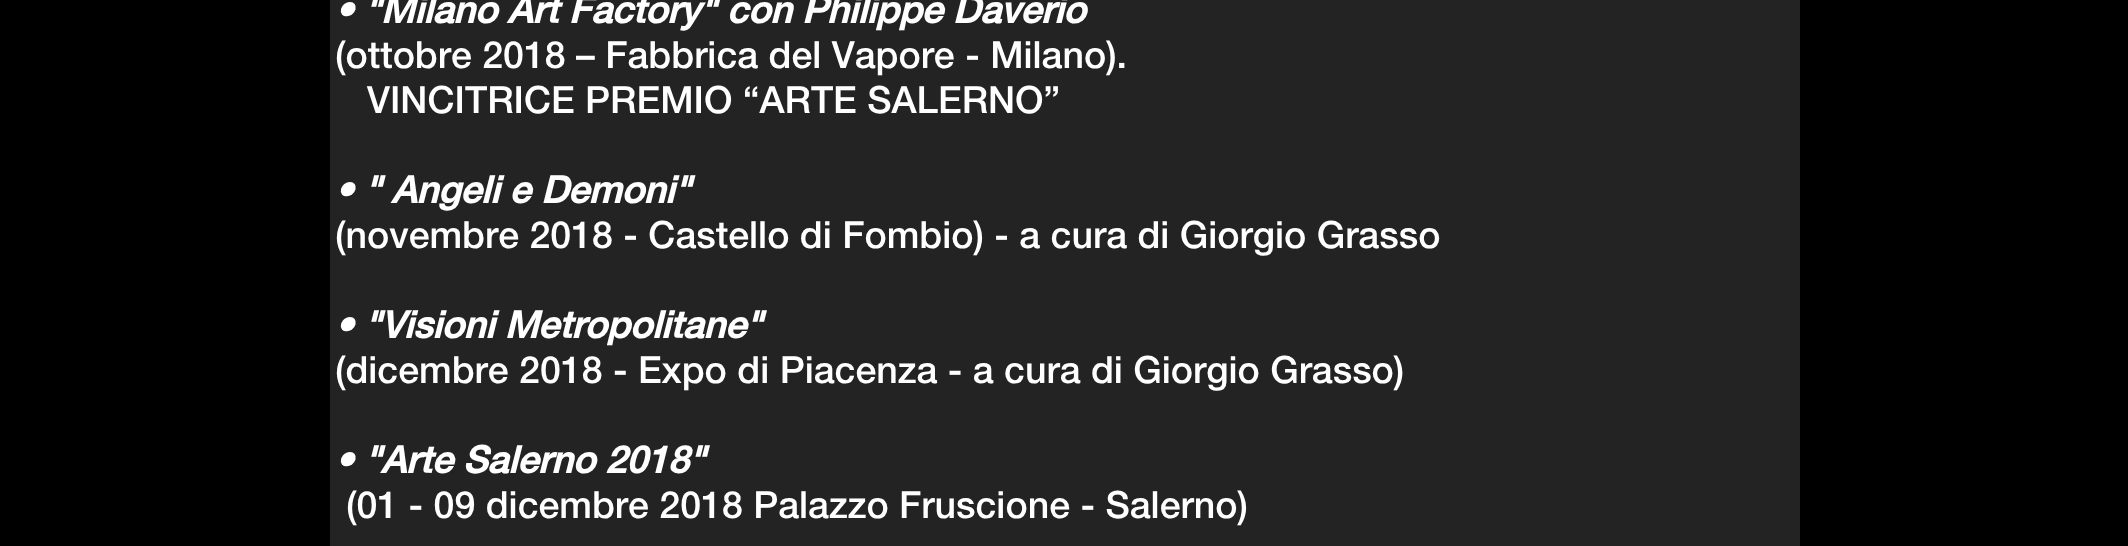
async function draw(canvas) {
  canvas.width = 2128
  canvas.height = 546
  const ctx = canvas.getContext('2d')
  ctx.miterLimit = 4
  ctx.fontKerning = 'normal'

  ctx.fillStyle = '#000'
  ctx.fillRect(0, 0, 2128, 546)
  ctx.fillStyle = '#232323'
  ctx.fillRect(330, 0, 1470, 546)
  ctx.font = 'italic bold 37.5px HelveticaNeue'
  ctx.fillStyle = '#fff'
  ctx.fillText('• "Milano Art Factory" con Philippe Daverio', 335, 23)
  ctx.font = '500 37.5px HelveticaNeue'
  ctx.fillText('(ottobre 2018 – Fabbrica del Vapore - Milano).', 335, 68)
  ctx.fillText('VINCITRICE PREMIO “ARTE SALERNO”', 367, 113)
  ctx.font = 'italic bold 37.5px HelveticaNeue'
  ctx.fillText('• " Angeli e Demoni"', 335, 203)
  ctx.font = '500 37.5px HelveticaNeue'
  ctx.fillText('(novembre 2018 - Castello di Fombio) - a cura di Giorgio Grasso', 335, 248)
  ctx.font = 'italic bold 37.5px HelveticaNeue'
  ctx.fillText('• "Visioni Metropolitane"', 335, 338)
  ctx.font = '500 37.5px HelveticaNeue'
  ctx.fillText('(dicembre 2018 - Expo di Piacenza - a cura di Giorgio Grasso)', 335, 383)
  ctx.font = 'italic bold 37.5px HelveticaNeue'
  ctx.fillText('• "Arte Salerno 2018"', 335, 473)
  ctx.font = '500 37.5px HelveticaNeue'
  ctx.fillText('(01 - 09 dicembre 2018 Palazzo Fruscione - Salerno)', 346, 518)
}

draw(document.querySelector('canvas'))
